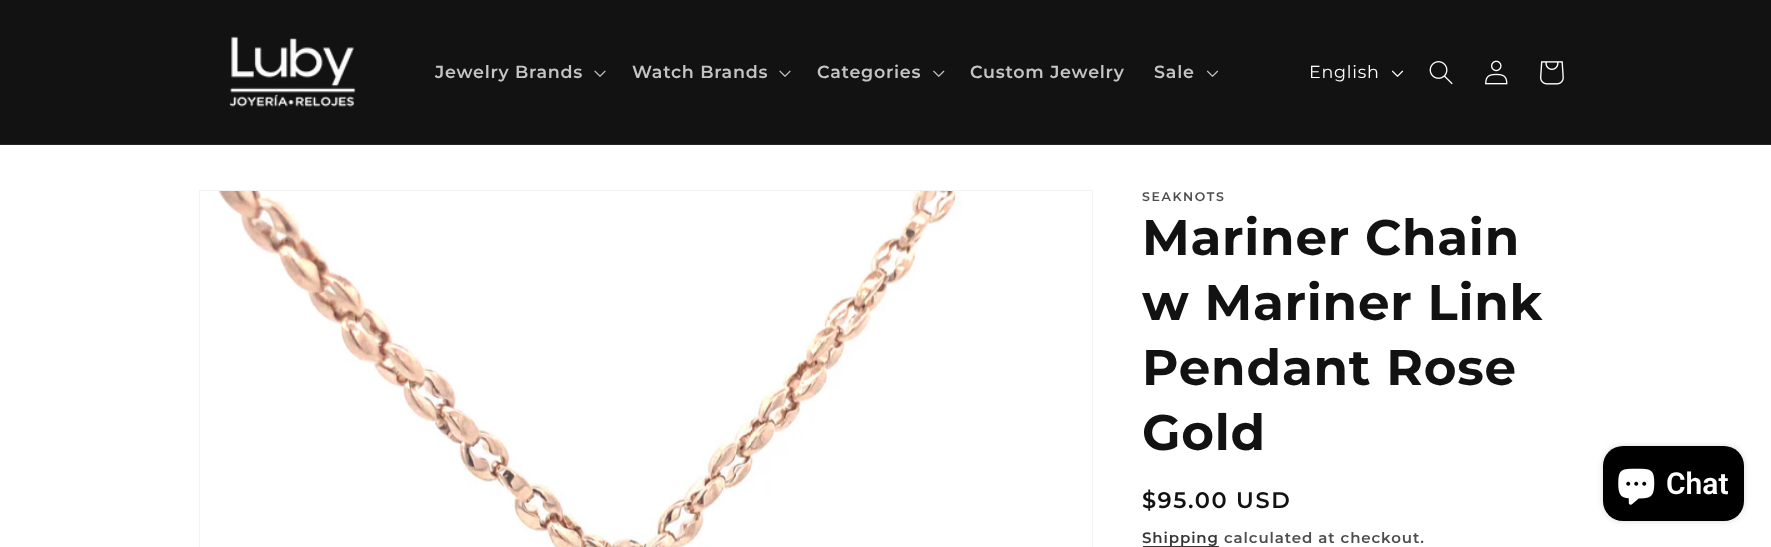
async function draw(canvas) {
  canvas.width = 1771
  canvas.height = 547
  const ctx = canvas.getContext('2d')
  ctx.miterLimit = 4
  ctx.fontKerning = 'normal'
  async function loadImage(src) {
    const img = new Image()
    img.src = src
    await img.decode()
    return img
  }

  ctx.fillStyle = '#fff'
  ctx.fillRect(0, 0, 1771, 547)
  ctx.fillStyle = '#121212'
  ctx.fillRect(0, 0, 1771, 144)
  ctx.fillStyle = '#252525'
  ctx.fillRect(0, 144, 1771, 1)
  ctx.drawImage(await loadImage('image0.png'), 229, 36, 127, 71)
  ctx.letterSpacing = '0.75px'
  ctx.font = '600 17.5px Montserrat'
  ctx.fillStyle = '#c4c4c4'
  ctx.fillText('Jewelry Brands', 435, 78)
  ctx.drawImage(await loadImage('image1.png'), 594, 70, 12, 7)
  ctx.fillText('Watch Brands', 632, 78)
  ctx.drawImage(await loadImage('image1.png'), 779, 70, 12, 7)
  ctx.fillText('Categories', 817, 78)
  ctx.drawImage(await loadImage('image2.png'), 933, 70, 12, 7)
  ctx.fillText('Custom Jewelry', 970, 78)
  ctx.fillText('Sale', 1154, 78)
  ctx.drawImage(await loadImage('image3.png'), 1206, 70, 13, 7)
  ctx.font = '17.5px Montserrat'
  ctx.fillStyle = '#fff'
  ctx.fillText('English', 1309, 78)
  ctx.drawImage(await loadImage('image4.png'), 1391, 70, 13, 7)
  ctx.drawImage(await loadImage('image5.png'), 1429, 61, 24, 24)
  ctx.drawImage(await loadImage('image6.png'), 1485, 60, 23, 25)
  ctx.drawImage(await loadImage('image7.png'), 1540, 61, 24, 24)
  ctx.strokeStyle = '#f3f3f3'
  ctx.strokeRect(199.5, 190.5, 893, 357)
  ctx.drawImage(await loadImage('image8.png'), 218, 191, 745, 356)
  ctx.letterSpacing = '1.6px'
  ctx.font = '600 12.5px Montserrat'
  ctx.fillStyle = '#4d4d4d'
  ctx.fillText('SEAKNOTS', 1142, 201)
  ctx.letterSpacing = '0.75px'
  ctx.font = 'bold 50px Montserrat'
  ctx.fillStyle = '#121212'
  ctx.fillText('Mariner Chain', 1142, 255)
  ctx.fillText('w Mariner Link', 1142, 320)
  ctx.fillText('Pendant Rose', 1142, 385)
  ctx.fillText('Gold', 1142, 450)
  ctx.letterSpacing = '1.6px'
  ctx.font = '600 22.5px Montserrat'
  ctx.fillText('$95.00 USD', 1142, 508)
  ctx.letterSpacing = '0.9px'
  ctx.font = '600 15px Montserrat'
  ctx.fillStyle = '#363636'
  ctx.fillText('Shipping', 1142, 543)
  ctx.fillRect(1143, 546, 76, 1)
  ctx.fillStyle = '#4d4d4d'
  ctx.fillText('calculated at checkout.', 1224, 543)
  ctx.fillStyle = '#00000026'
  ctx.filter = 'blur(3px)'
  ctx.beginPath()
  ctx.roundRect(1603, 446, 141, 75, 20)
  ctx.fill()
  ctx.filter = 'none'
  ctx.fillStyle = '#000'
  ctx.beginPath()
  ctx.roundRect(1603, 446, 141, 75, 20)
  ctx.fill()
  ctx.drawImage(await loadImage('image9.png'), 1618, 468, 37, 37)
  ctx.letterSpacing = '0px'
  ctx.font = '600 30px Roboto'
  ctx.fillStyle = '#fff'
  ctx.fillText('Chat', 1666, 494)
}

draw(document.querySelector('canvas'))
